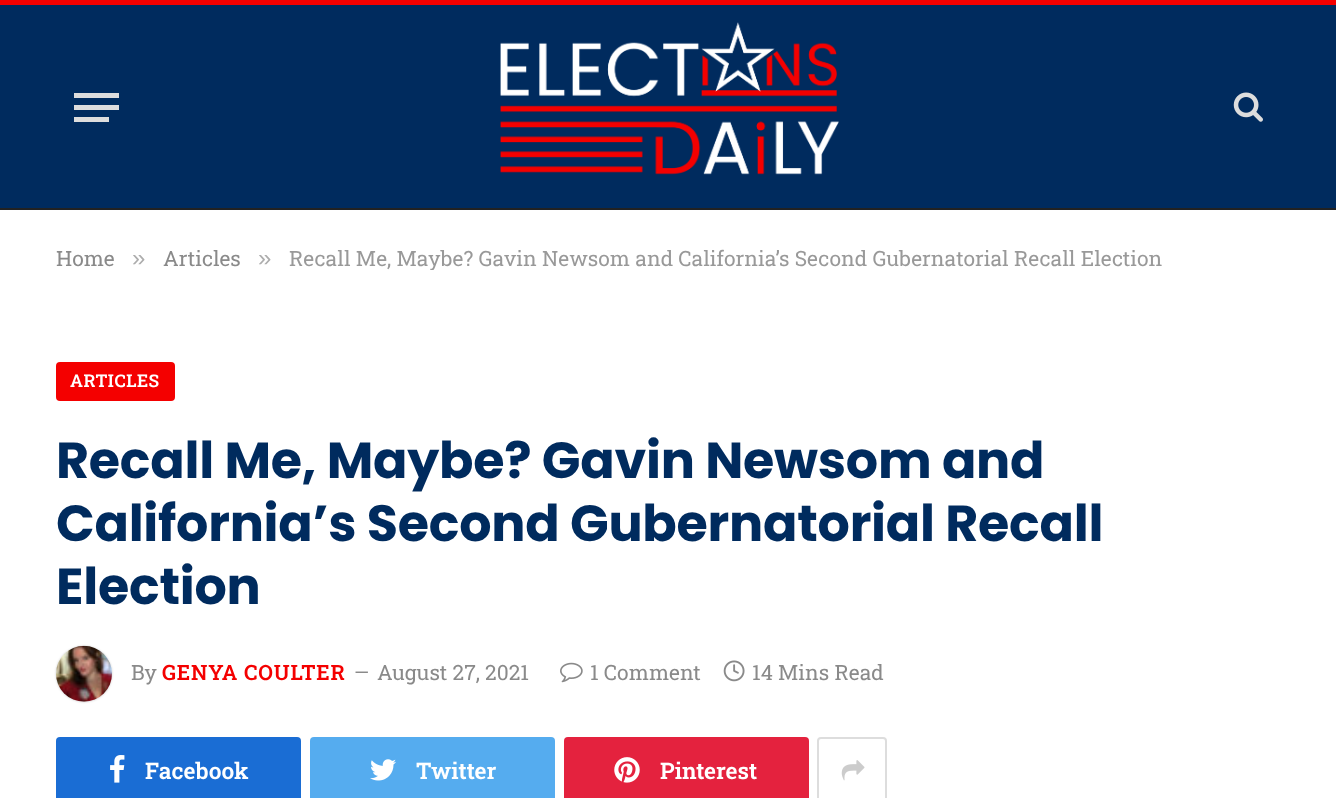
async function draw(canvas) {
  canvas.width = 1336
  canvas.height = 798
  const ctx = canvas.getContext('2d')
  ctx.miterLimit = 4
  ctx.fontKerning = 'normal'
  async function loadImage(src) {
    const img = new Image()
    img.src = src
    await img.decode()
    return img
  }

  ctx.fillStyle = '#fff'
  ctx.fillRect(0, 0, 1336, 798)
  ctx.fillStyle = '#002b5e'
  ctx.fillRect(0, 5, 1336, 203)
  ctx.fillStyle = '#f40000'
  ctx.fillRect(0, 0, 1336, 5)
  ctx.fillStyle = '#222'
  ctx.fillRect(0, 208, 1336, 2)
  ctx.fillStyle = '#ddd'
  ctx.fillRect(74, 117, 35, 5)
  ctx.fillRect(74, 93, 45, 5)
  ctx.fillRect(74, 105, 45, 5)
  ctx.drawImage(await loadImage('image0.png'), 500, 22, 339, 153)
  ctx.drawImage(await loadImage('image1.png'), 1233, 92, 30, 30)
  ctx.font = '21px Roboto Slab'
  ctx.fillStyle = '#8a8a8a'
  ctx.fillText('Home', 56, 266)
  ctx.font = '24px Liberation Sans'
  ctx.fillStyle = '#adadad'
  ctx.fillText('»', 132, 266)
  ctx.font = '21px Roboto Slab'
  ctx.fillStyle = '#8a8a8a'
  ctx.fillText('Articles', 163, 266)
  ctx.font = '24px Liberation Sans'
  ctx.fillStyle = '#adadad'
  ctx.fillText('»', 258, 266)
  ctx.save()
  ctx.beginPath()
  ctx.rect(12, 245, 1313, 25)
  ctx.clip()
  ctx.font = '21px Roboto Slab'
  ctx.fillStyle = '#999'
  ctx.fillText('Recall Me, Maybe? Gavin Newsom and California’s Second Gubernatorial Recall Election', 289, 266)
  ctx.restore()
  ctx.fillStyle = '#f40000'
  ctx.beginPath()
  ctx.roundRect(56, 362, 119, 39, 4)
  ctx.fill()
  ctx.letterSpacing = '0.5px'
  ctx.font = '600 17.5px Roboto Slab'
  ctx.fillStyle = '#fff'
  ctx.fillText('ARTICLES', 70, 387)
  ctx.letterSpacing = '-0.25px'
  ctx.font = 'bold 50.75px Poppins'
  ctx.fillStyle = '#002b5e'
  ctx.fillText('Recall Me, Maybe? Gavin Newsom and', 56, 478)
  ctx.fillText('California’s Second Gubernatorial Recall', 56, 541)
  ctx.fillText('Election', 56, 604)
  ctx.fillStyle = '#00000033'
  ctx.filter = 'blur(1px)'
  ctx.beginPath()
  ctx.roundRect(56, 646, 56, 56, 28)
  ctx.fill()
  ctx.filter = 'none'
  ctx.drawImage(await loadImage('image2.png'), 56, 645, 56, 57)
  ctx.letterSpacing = '0px'
  ctx.font = '21px Roboto Slab'
  ctx.fillStyle = '#8a8a8a'
  ctx.fillText('By', 131, 680)
  ctx.letterSpacing = '0.8px'
  ctx.font = '600 21px Roboto Slab'
  ctx.fillStyle = '#f40000'
  ctx.fillText('GENYA COULTER', 162, 680)
  ctx.letterSpacing = '0px'
  ctx.font = '19px Roboto Slab'
  ctx.fillStyle = '#8a8a8a'
  ctx.fillText('—', 354, 679)
  ctx.font = '21px Roboto Slab'
  ctx.fillText('August 27, 2021', 377, 680)
  ctx.drawImage(await loadImage('image3.png'), 560, 662, 23, 21)
  ctx.fillText('1 Comment', 590, 680)
  ctx.drawImage(await loadImage('image4.png'), 723, 660, 22, 22)
  ctx.fillText('14 Mins Read', 752, 680)
  ctx.fillStyle = '#1a6dd4'
  ctx.beginPath()
  ctx.roundRect(56, 737, 245, 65, 4)
  ctx.fill()
  ctx.drawImage(await loadImage('image5.png'), 110, 755, 15, 28)
  ctx.font = '600 22.75px Roboto Slab'
  ctx.fillStyle = '#fff'
  ctx.fillText('Facebook', 145, 779)
  ctx.fillStyle = '#55acef'
  ctx.beginPath()
  ctx.roundRect(310, 737, 245, 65, 4)
  ctx.fill()
  ctx.drawImage(await loadImage('image6.png'), 370, 759, 26, 22)
  ctx.fillStyle = '#fff'
  ctx.fillText('Twitter', 416, 779)
  ctx.fillStyle = '#e4223e'
  ctx.beginPath()
  ctx.roundRect(564, 737, 245, 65, 4)
  ctx.fill()
  ctx.drawImage(await loadImage('image7.png'), 614, 757, 26, 26)
  ctx.fillStyle = '#fff'
  ctx.fillText('Pinterest', 660, 779)
  ctx.beginPath()
  ctx.roundRect(818, 738, 68, 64, 3)
  ctx.strokeStyle = '#ddd'
  ctx.lineWidth = 2
  ctx.stroke()
  ctx.drawImage(await loadImage('image8.png'), 841, 760, 24, 21)
}

draw(document.querySelector('canvas'))
